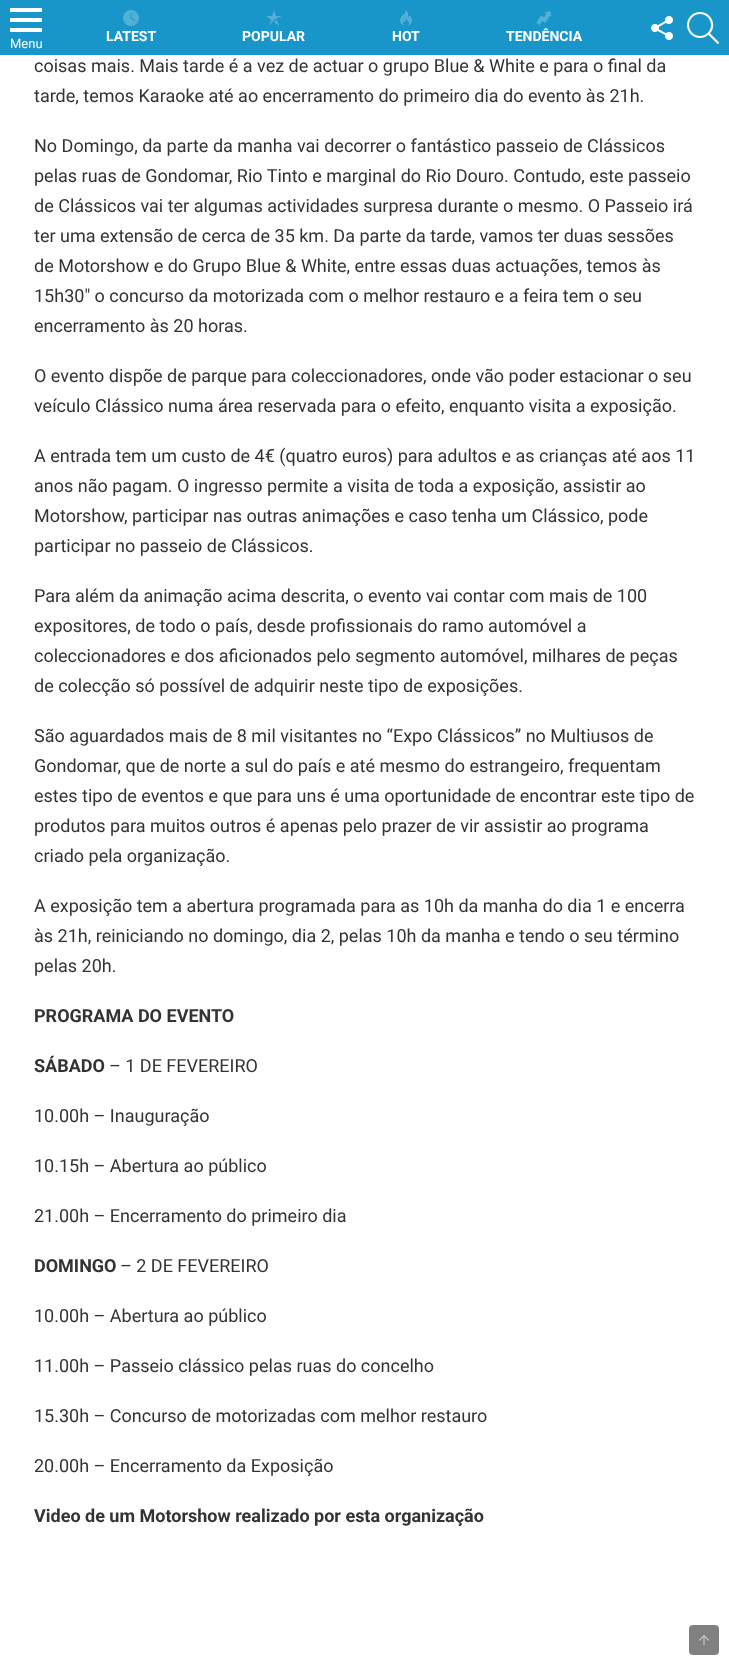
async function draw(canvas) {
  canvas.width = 729
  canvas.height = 1665
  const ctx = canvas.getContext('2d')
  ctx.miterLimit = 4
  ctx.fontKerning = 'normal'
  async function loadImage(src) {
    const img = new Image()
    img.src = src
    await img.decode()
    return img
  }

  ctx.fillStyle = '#fff'
  ctx.fillRect(0, 0, 729, 1665)
  ctx.fillStyle = '#1896c9'
  ctx.fillRect(0, 0, 729, 55)
  ctx.drawImage(await loadImage('image0.png'), 123, 10, 16, 16)
  ctx.font = 'bold 14px Roboto'
  ctx.fillStyle = '#fff'
  ctx.fillText('LATEST', 106, 41)
  ctx.drawImage(await loadImage('image1.png'), 266, 10, 16, 16)
  ctx.fillText('POPULAR', 242, 41)
  ctx.drawImage(await loadImage('image2.png'), 400, 10, 12, 16)
  ctx.fillText('HOT', 392, 41)
  ctx.drawImage(await loadImage('image3.png'), 536, 11, 16, 14)
  ctx.fillText('TENDÊNCIA', 506, 41)
  ctx.drawImage(await loadImage('image4.png'), 651, 16, 22, 24)
  ctx.drawImage(await loadImage('image5.png'), 687, 12, 32, 32)
  ctx.drawImage(await loadImage('image6.png'), 10, 8, 32, 24)
  ctx.font = '13px Roboto'
  ctx.fillText('Menu', 10, 48)
  ctx.font = '18px Roboto'
  ctx.fillStyle = '#333'
  ctx.fillText('coisas mais. Mais tarde é a vez de actuar o grupo Blue & White e para o final da', 34, 72)
  ctx.fillText('tarde, temos Karaoke até ao encerramento do primeiro dia do evento às 21h.', 34, 102)
  ctx.fillText('No Domingo, da parte da manha vai decorrer o fantástico passeio de Clássicos', 34, 152)
  ctx.fillText('pelas ruas de Gondomar, Rio Tinto e marginal do Rio Douro. Contudo, este passeio', 34, 182)
  ctx.fillText('de Clássicos vai ter algumas actividades surpresa durante o mesmo. O Passeio irá', 34, 212)
  ctx.fillText('ter uma extensão de cerca de 35 km. Da parte da tarde, vamos ter duas sessões', 34, 242)
  ctx.fillText('de Motorshow e do Grupo Blue & White, entre essas duas actuações, temos às', 34, 272)
  ctx.fillText('15h30″ o concurso da motorizada com o melhor restauro e a feira tem o seu', 34, 302)
  ctx.fillText('encerramento às 20 horas.', 34, 332)
  ctx.fillText('O evento dispõe de parque para coleccionadores, onde vão poder estacionar o seu', 34, 382)
  ctx.fillText('veículo Clássico numa área reservada para o efeito, enquanto visita a exposição.', 34, 412)
  ctx.fillText('A entrada tem um custo de 4€ (quatro euros) para adultos e as crianças até aos 11', 34, 462)
  ctx.fillText('anos não pagam. O ingresso permite a visita de toda a exposição, assistir ao', 34, 492)
  ctx.fillText('Motorshow, participar nas outras animações e caso tenha um Clássico, pode', 34, 522)
  ctx.fillText('participar no passeio de Clássicos.', 34, 552)
  ctx.fillText('Para além da animação acima descrita, o evento vai contar com mais de 100', 34, 602)
  ctx.fillText('expositores, de todo o país, desde profissionais do ramo automóvel a', 34, 632)
  ctx.fillText('coleccionadores e dos aficionados pelo segmento automóvel, milhares de peças', 34, 662)
  ctx.fillText('de colecção só possível de adquirir neste tipo de exposições.', 34, 692)
  ctx.fillText('São aguardados mais de 8 mil visitantes no “Expo Clássicos” no Multiusos de', 34, 742)
  ctx.fillText('Gondomar, que de norte a sul do país e até mesmo do estrangeiro, frequentam', 34, 772)
  ctx.fillText('estes tipo de eventos e que para uns é uma oportunidade de encontrar este tipo de', 34, 802)
  ctx.fillText('produtos para muitos outros é apenas pelo prazer de vir assistir ao programa', 34, 832)
  ctx.fillText('criado pela organização.', 34, 862)
  ctx.fillText('A exposição tem a abertura programada para as 10h da manha do dia 1 e encerra', 34, 912)
  ctx.fillText('às 21h, reiniciando no domingo, dia 2, pelas 10h da manha e tendo o seu término', 34, 942)
  ctx.fillText('pelas 20h.', 34, 972)
  ctx.font = 'bold 18px Roboto'
  ctx.fillText('PROGRAMA DO EVENTO', 34, 1022)
  ctx.fillText('SÁBADO', 34, 1072)
  ctx.font = '18px Roboto'
  ctx.fillText('– 1 DE FEVEREIRO', 109, 1072)
  ctx.fillText('10.00h – Inauguração', 34, 1122)
  ctx.fillText('10.15h – Abertura ao público', 34, 1172)
  ctx.fillText('21.00h – Encerramento do primeiro dia', 34, 1222)
  ctx.font = 'bold 18px Roboto'
  ctx.fillText('DOMINGO', 34, 1272)
  ctx.font = '18px Roboto'
  ctx.fillText('– 2 DE FEVEREIRO', 120, 1272)
  ctx.fillText('10.00h – Abertura ao público', 34, 1322)
  ctx.fillText('11.00h – Passeio clássico pelas ruas do concelho', 34, 1372)
  ctx.fillText('15.30h – Concurso de motorizadas com melhor restauro', 34, 1422)
  ctx.fillText('20.00h – Encerramento da Exposição', 34, 1472)
  ctx.font = 'bold 18px Roboto'
  ctx.fillText('Video de um Motorshow realizado por esta organização', 34, 1522)
  ctx.fillStyle = '#808080'
  ctx.beginPath()
  ctx.roundRect(689, 1625, 30, 30, 4)
  ctx.fill()
  ctx.drawImage(await loadImage('image7.png'), 699, 1635, 11, 11)
}

draw(document.querySelector('canvas'))
